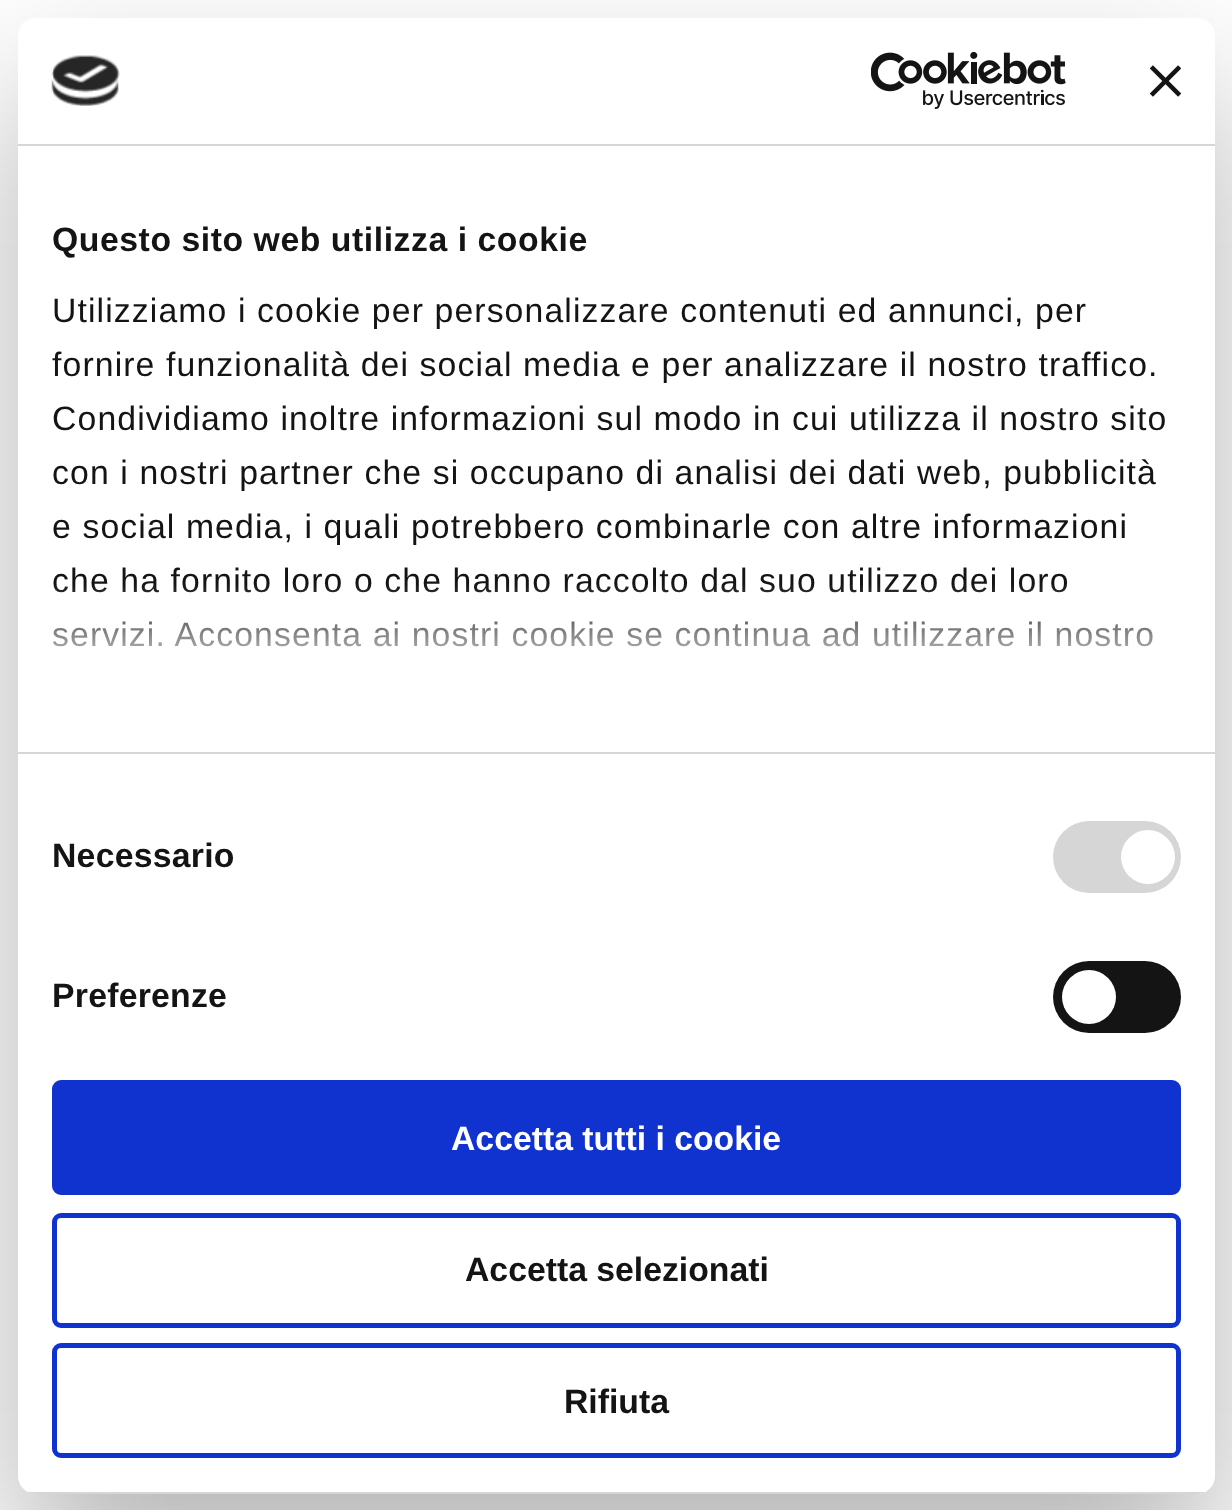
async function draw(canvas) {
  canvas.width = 1232
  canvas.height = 1510
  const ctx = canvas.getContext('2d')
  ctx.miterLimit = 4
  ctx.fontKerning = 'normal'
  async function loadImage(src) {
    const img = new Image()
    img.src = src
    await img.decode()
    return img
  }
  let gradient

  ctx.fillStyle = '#fff'
  ctx.fillRect(0, 0, 1232, 1510)
  ctx.fillStyle = '#0000004d'
  ctx.filter = 'blur(76.5px)'
  ctx.beginPath()
  ctx.roundRect(18, 90, 1197, 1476, 18)
  ctx.fill()
  ctx.filter = 'none'
  ctx.fillStyle = '#fff'
  ctx.beginPath()
  ctx.roundRect(18, 18, 1197, 1476, 18)
  ctx.fill()
  ctx.fillStyle = '#d6d6d6'
  ctx.fillRect(18, 144, 1197, 2)
  ctx.drawImage(await loadImage('image0.png'), 51, 55, 69, 51)
  ctx.drawImage(await loadImage('image1.png'), 871, 52, 195, 57)
  ctx.drawImage(await loadImage('image2.png'), 1150, 65, 31, 32)
  ctx.fillRect(18, 752, 1197, 2)
  ctx.letterSpacing = '0.55px'
  ctx.font = 'bold 33.75px Liberation Sans'
  ctx.fillStyle = '#141414'
  ctx.fillText('Questo sito web utilizza i cookie', 52, 251)
  ctx.letterSpacing = '1.12px'
  ctx.font = '33.75px Liberation Sans'
  ctx.fillText('Utilizziamo i cookie per personalizzare contenuti ed annunci, per', 52, 322)
  ctx.fillText('fornire funzionalità dei social media e per analizzare il nostro traffico.', 52, 376)
  ctx.fillText('Condividiamo inoltre informazioni sul modo in cui utilizza il nostro sito', 52, 430)
  ctx.fillText('con i nostri partner che si occupano di analisi dei dati web, pubblicità', 52, 484)
  ctx.fillText('e social media, i quali potrebbero combinarle con altre informazioni', 52, 538)
  ctx.fillText('che ha fornito loro o che hanno raccolto dal suo utilizzo dei loro', 52, 592)
  ctx.fillText('servizi. Acconsenta ai nostri cookie se continua ad utilizzare il nostro', 52, 646)
  gradient = ctx.createLinearGradient(602, 752, 602, 583)
  gradient.addColorStop(0, '#fff')
  gradient.addColorStop(0.5, '#ffffffcc')
  gradient.addColorStop(1, '#ffffff00')
  ctx.fillStyle = gradient
  ctx.fillRect(52, 585, 1101, 62)
  ctx.letterSpacing = '0.25px'
  ctx.font = 'bold 33.75px Liberation Sans'
  ctx.fillStyle = '#141414'
  ctx.fillText('Necessario', 52, 867)
  ctx.fillStyle = '#d6d6d6'
  ctx.beginPath()
  ctx.roundRect(1053, 821, 128, 72, 36)
  ctx.fill()
  ctx.fillStyle = '#fff'
  ctx.beginPath()
  ctx.arc(1148, 857, 27, 0, 2 * Math.PI)
  ctx.fill()
  ctx.fillStyle = '#141414'
  ctx.fillText('Preferenze', 52, 1007)
  ctx.beginPath()
  ctx.roundRect(1053, 961, 128, 72, 36)
  ctx.fill()
  ctx.fillStyle = '#fff'
  ctx.beginPath()
  ctx.arc(1089, 997, 27, 0, 2 * Math.PI)
  ctx.fill()
  ctx.save()
  ctx.beginPath()
  ctx.roundRect(18, 18, 1197, 1476, 18)
  ctx.clip()
  ctx.fillStyle = '#d6d6d6'
  ctx.fillRect(28, 1492, 1177, 2)
  ctx.restore()
  ctx.fillStyle = '#1032cf'
  ctx.beginPath()
  ctx.roundRect(54.5, 1082.5, 1124, 110, 6.5)
  ctx.fill()
  ctx.strokeStyle = '#1032cf'
  ctx.lineWidth = 5
  ctx.stroke()
  ctx.letterSpacing = '0px'
  ctx.fillStyle = '#fff'
  ctx.fillText('Accetta tutti i cookie', 451, 1150)
  ctx.beginPath()
  ctx.roundRect(54.5, 1215.5, 1124, 110, 6.5)
  ctx.stroke()
  ctx.fillStyle = '#141414'
  ctx.fillText('Accetta selezionati', 465, 1281)
  ctx.beginPath()
  ctx.roundRect(54.5, 1345.5, 1124, 110, 6.5)
  ctx.stroke()
  ctx.fillText('Rifiuta', 564, 1413)
}

draw(document.querySelector('canvas'))
